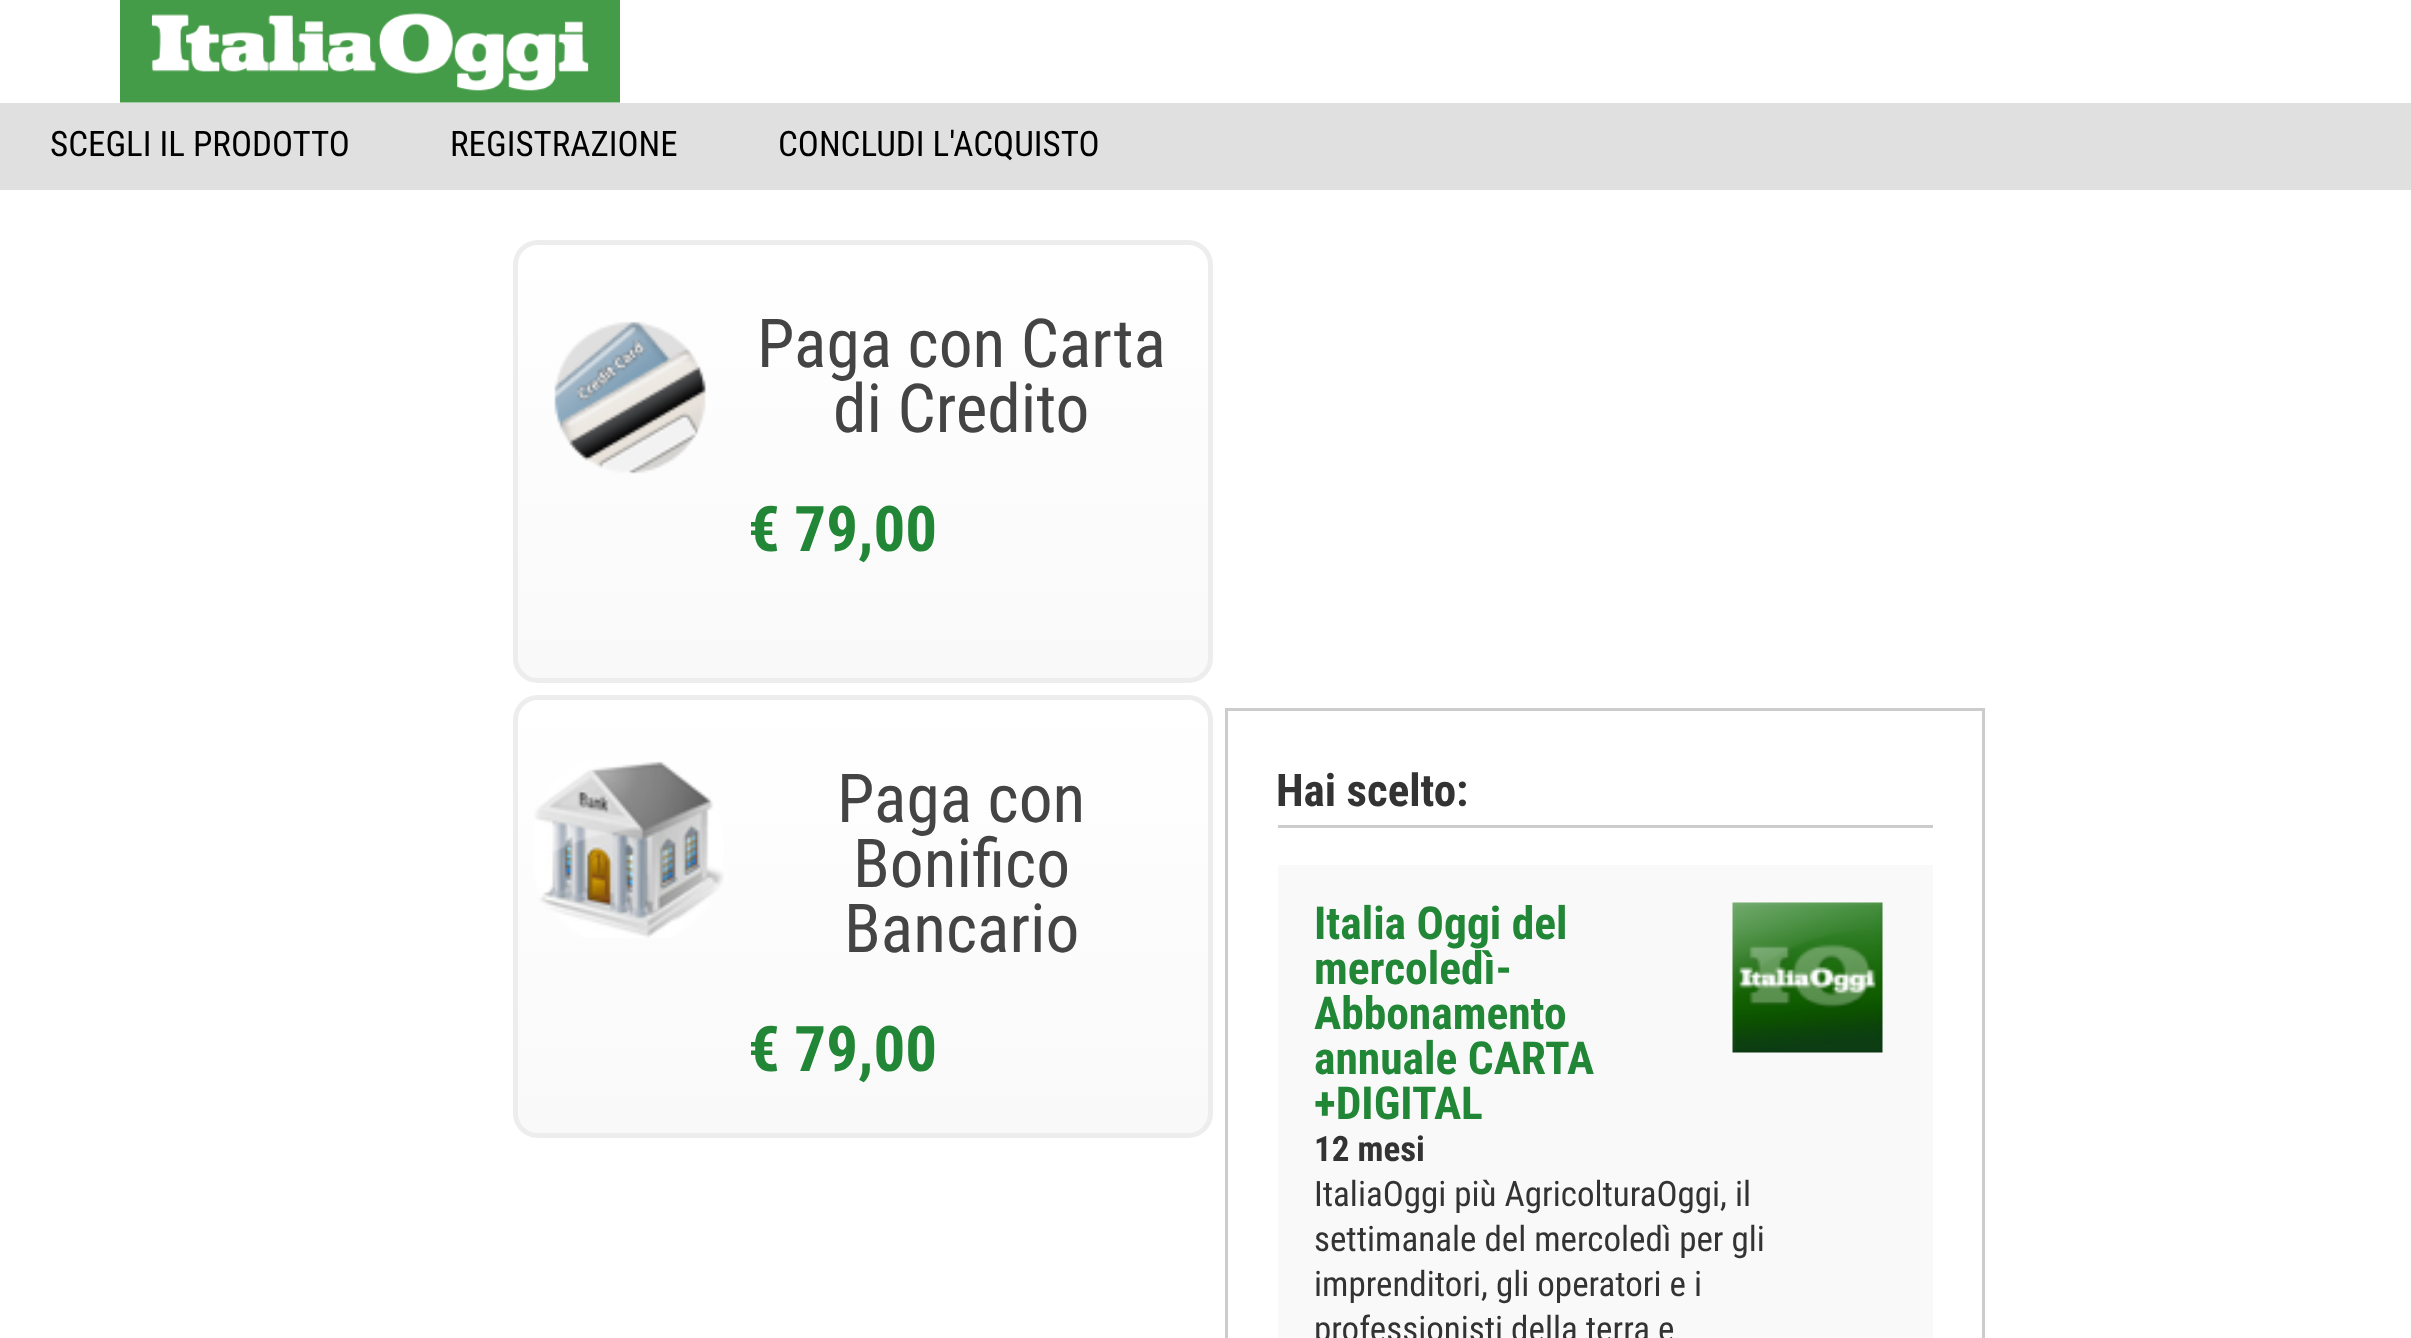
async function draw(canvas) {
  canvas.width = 2411
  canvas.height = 1338
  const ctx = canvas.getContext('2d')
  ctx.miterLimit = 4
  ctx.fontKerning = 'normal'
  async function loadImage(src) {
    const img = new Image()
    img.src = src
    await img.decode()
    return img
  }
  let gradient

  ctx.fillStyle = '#fff'
  ctx.fillRect(0, 0, 2411, 1338)
  ctx.drawImage(await loadImage('image0.png'), 120, 0, 500, 103)
  ctx.fillStyle = '#e0e0e0'
  ctx.fillRect(0, 103, 2411, 87)
  ctx.font = '35px Roboto Condensed'
  ctx.fillStyle = '#000'
  ctx.fillText('SCEGLI IL PRODOTTO', 50, 156)
  ctx.fillText('REGISTRAZIONE', 450, 156)
  ctx.fillText('CONCLUDI L\'ACQUISTO', 778, 156)
  ctx.save()
  ctx.beginPath()
  ctx.roundRect(513, 240, 700, 443, 25)
  ctx.clip()
  gradient = ctx.createLinearGradient(863, 245, 863, 678)
  gradient.addColorStop(0, '#fff')
  gradient.addColorStop(1, '#f9f9f9')
  ctx.fillStyle = gradient
  ctx.fillRect(513, 245, 700, 433)
  ctx.restore()
  ctx.beginPath()
  ctx.roundRect(515.5, 242.5, 695, 438, 22.5)
  ctx.strokeStyle = '#ededed'
  ctx.lineWidth = 5
  ctx.stroke()
  ctx.drawImage(await loadImage('image1.png'), 554, 321, 152, 153)
  ctx.font = '67.5px Roboto Condensed'
  ctx.fillStyle = '#444'
  ctx.fillText('Paga con Carta', 757, 367)
  ctx.fillText('di Credito', 833, 432)
  ctx.font = 'bold 63px Roboto Condensed'
  ctx.fillStyle = '#218636'
  ctx.fillText('€ 79,00', 748, 551)
  ctx.save()
  ctx.beginPath()
  ctx.roundRect(513, 695, 700, 443, 25)
  ctx.clip()
  gradient = ctx.createLinearGradient(863, 700, 863, 1133)
  gradient.addColorStop(0, '#fff')
  gradient.addColorStop(1, '#f9f9f9')
  ctx.fillStyle = gradient
  ctx.fillRect(513, 700, 700, 433)
  ctx.restore()
  ctx.beginPath()
  ctx.roundRect(515.5, 697.5, 695, 438, 22.5)
  ctx.stroke()
  ctx.drawImage(await loadImage('image2.png'), 534, 761, 190, 177)
  ctx.font = '67.5px Roboto Condensed'
  ctx.fillStyle = '#444'
  ctx.fillText('Paga con', 837, 822)
  ctx.fillText('Bonifico', 853, 887)
  ctx.fillText('Bancario', 844, 952)
  ctx.font = 'bold 63px Roboto Condensed'
  ctx.fillStyle = '#218636'
  ctx.fillText('€ 79,00', 748, 1071)
  ctx.strokeStyle = '#ccc'
  ctx.lineWidth = 3
  ctx.strokeRect(1226.5, 709.5, 757, 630)
  ctx.fillStyle = '#ccc'
  ctx.fillRect(1278, 825, 655, 3)
  ctx.font = 'bold 45px Roboto Condensed'
  ctx.fillStyle = '#333'
  ctx.fillText('Hai scelto:', 1276, 806)
  ctx.fillStyle = '#f9f9f9'
  ctx.fillRect(1278, 865, 655, 473)
  ctx.font = 'bold 45.5px Roboto Condensed'
  ctx.fillStyle = '#218636'
  ctx.fillText('Italia Oggi del', 1314, 939)
  ctx.fillText('mercoledì-', 1314, 984)
  ctx.fillText('Abbonamento', 1314, 1029)
  ctx.fillText('annuale CARTA', 1314, 1074)
  ctx.fillText('+DIGITAL', 1314, 1119)
  ctx.drawImage(await loadImage('image3.png'), 1732, 902, 151, 151)
  ctx.font = 'bold 35px Roboto Condensed'
  ctx.fillStyle = '#333'
  ctx.fillText('12 mesi', 1314, 1161)
  ctx.font = '35px Roboto Condensed'
  ctx.fillText('ItaliaOggi più AgricolturaOggi, il', 1314, 1206)
  ctx.fillText('settimanale del mercoledì per gli', 1314, 1251)
  ctx.fillText('imprenditori, gli operatori e i', 1314, 1296)
  ctx.fillText('professionisti della terra e', 1314, 1341)
}

draw(document.querySelector('canvas'))
